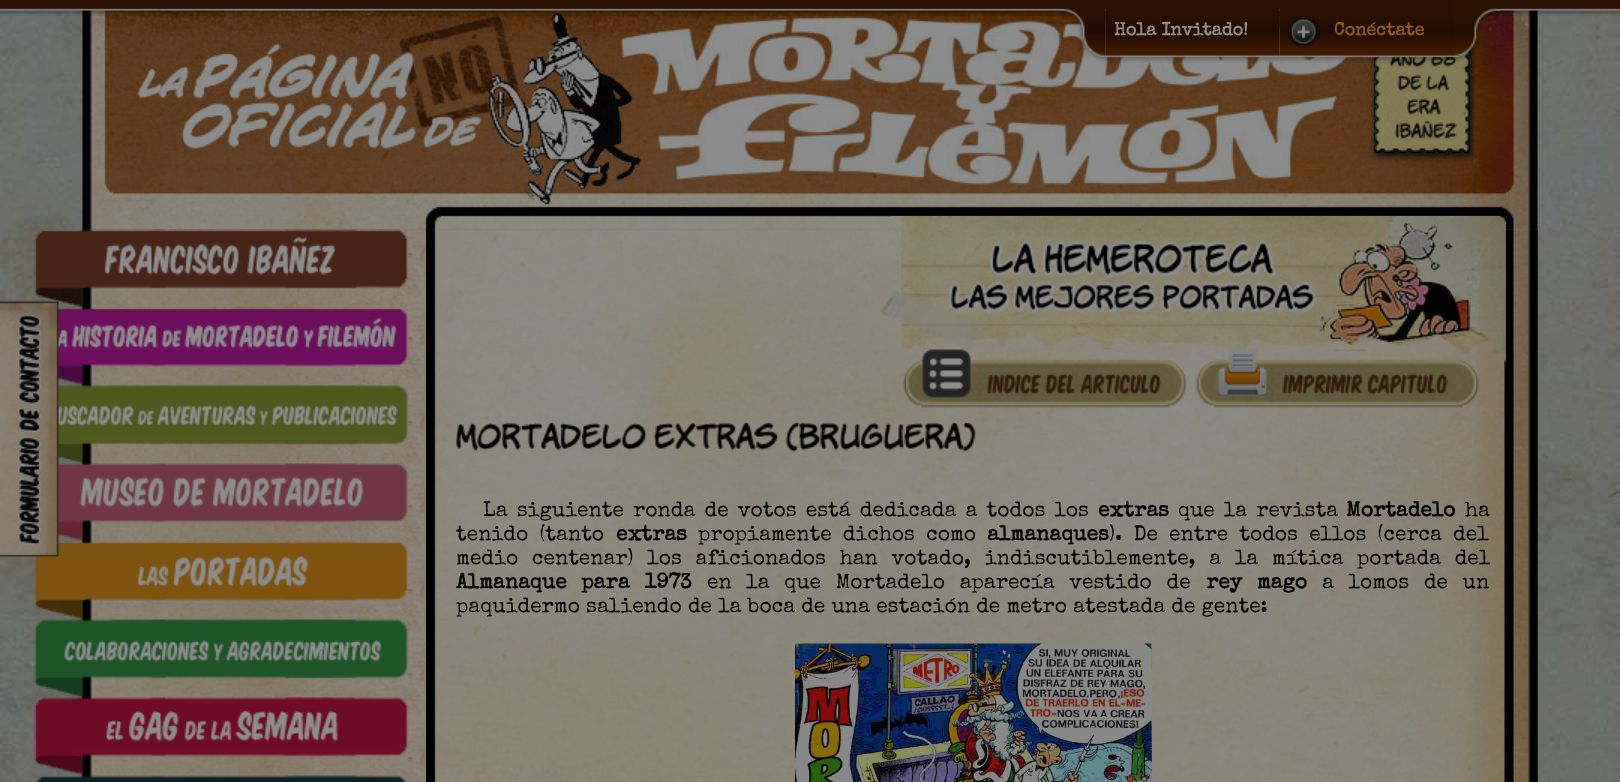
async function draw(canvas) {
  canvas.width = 1620
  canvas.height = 782
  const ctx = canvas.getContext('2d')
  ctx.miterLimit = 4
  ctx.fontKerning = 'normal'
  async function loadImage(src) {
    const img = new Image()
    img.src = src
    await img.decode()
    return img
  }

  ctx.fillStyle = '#fff'
  ctx.fillRect(0, 0, 1620, 782)
  ctx.drawImage(await loadImage('image0.png'), 0, 10, 1620, 772)
  ctx.drawImage(await loadImage('image9.png'), 82, 10, 1456, 220)
  ctx.drawImage(await loadImage('image1.png'), 0, 0, 1620, 16)
  ctx.drawImage(await loadImage('image2.png'), 1060, 7, 46, 55)
  ctx.drawImage(await loadImage('image3.png'), 1105, 8, 152, 55)
  ctx.font = 'bold 18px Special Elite'
  ctx.fillStyle = '#8c8c8c'
  ctx.fillText('Hola Invitado!', 1114, 35)
  ctx.drawImage(await loadImage('image4.png'), 1257, 8, 23, 55)
  ctx.drawImage(await loadImage('image10.png'), 1390, 56, 37, 11)
  ctx.drawImage(await loadImage('image11.png'), 1430, 55, 27, 12)
  ctx.drawImage(await loadImage('image5.png'), 1279, 8, 176, 55)
  ctx.drawImage(await loadImage('image6.png'), 1288, 16, 31, 31)
  ctx.fillStyle = '#8b5a0f'
  ctx.fillText('Conéctate', 1334, 35)
  ctx.drawImage(await loadImage('image7.png'), 1455, 0, 45, 62)
  ctx.drawImage(await loadImage('image18.png'), 82, 229, 1456, 553)
  ctx.drawImage(await loadImage('image19.png'), 82, 229, 344, 553)
  ctx.drawImage(await loadImage('image20.png'), 34, 229, 375, 79)
  ctx.drawImage(await loadImage('image21.png'), 58, 308, 351, 78)
  ctx.drawImage(await loadImage('image22.png'), 58, 385, 351, 79)
  ctx.drawImage(await loadImage('image23.png'), 58, 463, 351, 79)
  ctx.drawImage(await loadImage('image24.png'), 34, 541, 375, 79)
  ctx.drawImage(await loadImage('image8.png'), 0, 301, 59, 256)
  ctx.drawImage(await loadImage('image12.png'), 1397, 74, 26, 17)
  ctx.drawImage(await loadImage('image13.png'), 1426, 74, 24, 17)
  ctx.drawImage(await loadImage('image14.png'), 1406, 98, 36, 17)
  ctx.drawImage(await loadImage('image15.png'), 1394, 121, 63, 18)
  ctx.drawImage(await loadImage('image28.png'), 426, 229, 1112, 553)
  ctx.drawImage(await loadImage('image29.png'), 875, 216, 631, 146)
  ctx.drawImage(await loadImage('image16.png'), 903, 349, 284, 59)
  ctx.drawImage(await loadImage('image17.png'), 1195, 347, 285, 61)
  ctx.drawImage(await loadImage('image25.png'), 34, 619, 375, 79)
  ctx.drawImage(await loadImage('image26.png'), 34, 697, 375, 79)
  ctx.drawImage(await loadImage('image27.png'), 35, 775, 372, 7)
  ctx.drawImage(await loadImage('image30.png'), 989, 240, 51, 38)
  ctx.drawImage(await loadImage('image31.png'), 1042, 240, 235, 38)
  ctx.drawImage(await loadImage('image32.png'), 948, 280, 63, 33)
  ctx.drawImage(await loadImage('image33.png'), 1012, 281, 146, 33)
  ctx.drawImage(await loadImage('image34.png'), 1159, 280, 159, 33)
  ctx.drawImage(await loadImage('image35.png'), 456, 422, 191, 29)
  ctx.drawImage(await loadImage('image36.png'), 653, 422, 126, 29)
  ctx.drawImage(await loadImage('image37.png'), 785, 421, 191, 31)
  ctx.wordSpacing = '3px'
  ctx.font = '21px Special Elite'
  ctx.fillStyle = '#000'
  ctx.fillText('La siguiente ronda de votos está dedicada a todos los', 483, 516)
  ctx.wordSpacing = '0px'
  ctx.font = 'bold 21px Special Elite'
  ctx.fillText('extras', 1098, 516)
  ctx.wordSpacing = '3px'
  ctx.font = '21px Special Elite'
  ctx.fillText('que la revista', 1178, 516)
  ctx.wordSpacing = '0px'
  ctx.font = 'bold 21px Special Elite'
  ctx.fillText('Mortadelo', 1346, 516)
  ctx.font = '21px Special Elite'
  ctx.fillText('ha', 1465, 516)
  ctx.wordSpacing = '5px'
  ctx.fillText('tenido (tanto', 456, 540)
  ctx.wordSpacing = '0px'
  ctx.font = 'bold 21px Special Elite'
  ctx.fillText('extras', 616, 540)
  ctx.wordSpacing = '5px'
  ctx.font = '21px Special Elite'
  ctx.fillText('propiamente dichos como', 698, 540)
  ctx.wordSpacing = '0px'
  ctx.font = 'bold 21px Special Elite'
  ctx.fillText('almanaques', 987, 540)
  ctx.wordSpacing = '5px'
  ctx.font = '21px Special Elite'
  ctx.fillText('). De entre todos ellos (cerca del', 1109, 540)
  ctx.wordSpacing = '7.6px'
  ctx.fillText('medio centenar) los aficionados han votado, indiscutiblemente, a la mítica portada del', 456, 564)
  ctx.wordSpacing = '8.5px'
  ctx.font = 'bold 21px Special Elite'
  ctx.fillText('Almanaque para 1973', 456, 588)
  ctx.font = '21px Special Elite'
  ctx.fillText('en la que Mortadelo aparecía vestido de', 707, 588)
  ctx.font = 'bold 21px Special Elite'
  ctx.fillText('rey mago', 1206, 588)
  ctx.font = '21px Special Elite'
  ctx.fillText('a lomos de un', 1322, 588)
  ctx.wordSpacing = '0px'
  ctx.fillText('paquidermo saliendo de la boca de una estación de metro atestada de gente:', 456, 612)
  ctx.drawImage(await loadImage('image38.png'), 795, 643, 357, 139)
}

draw(document.querySelector('canvas'))
